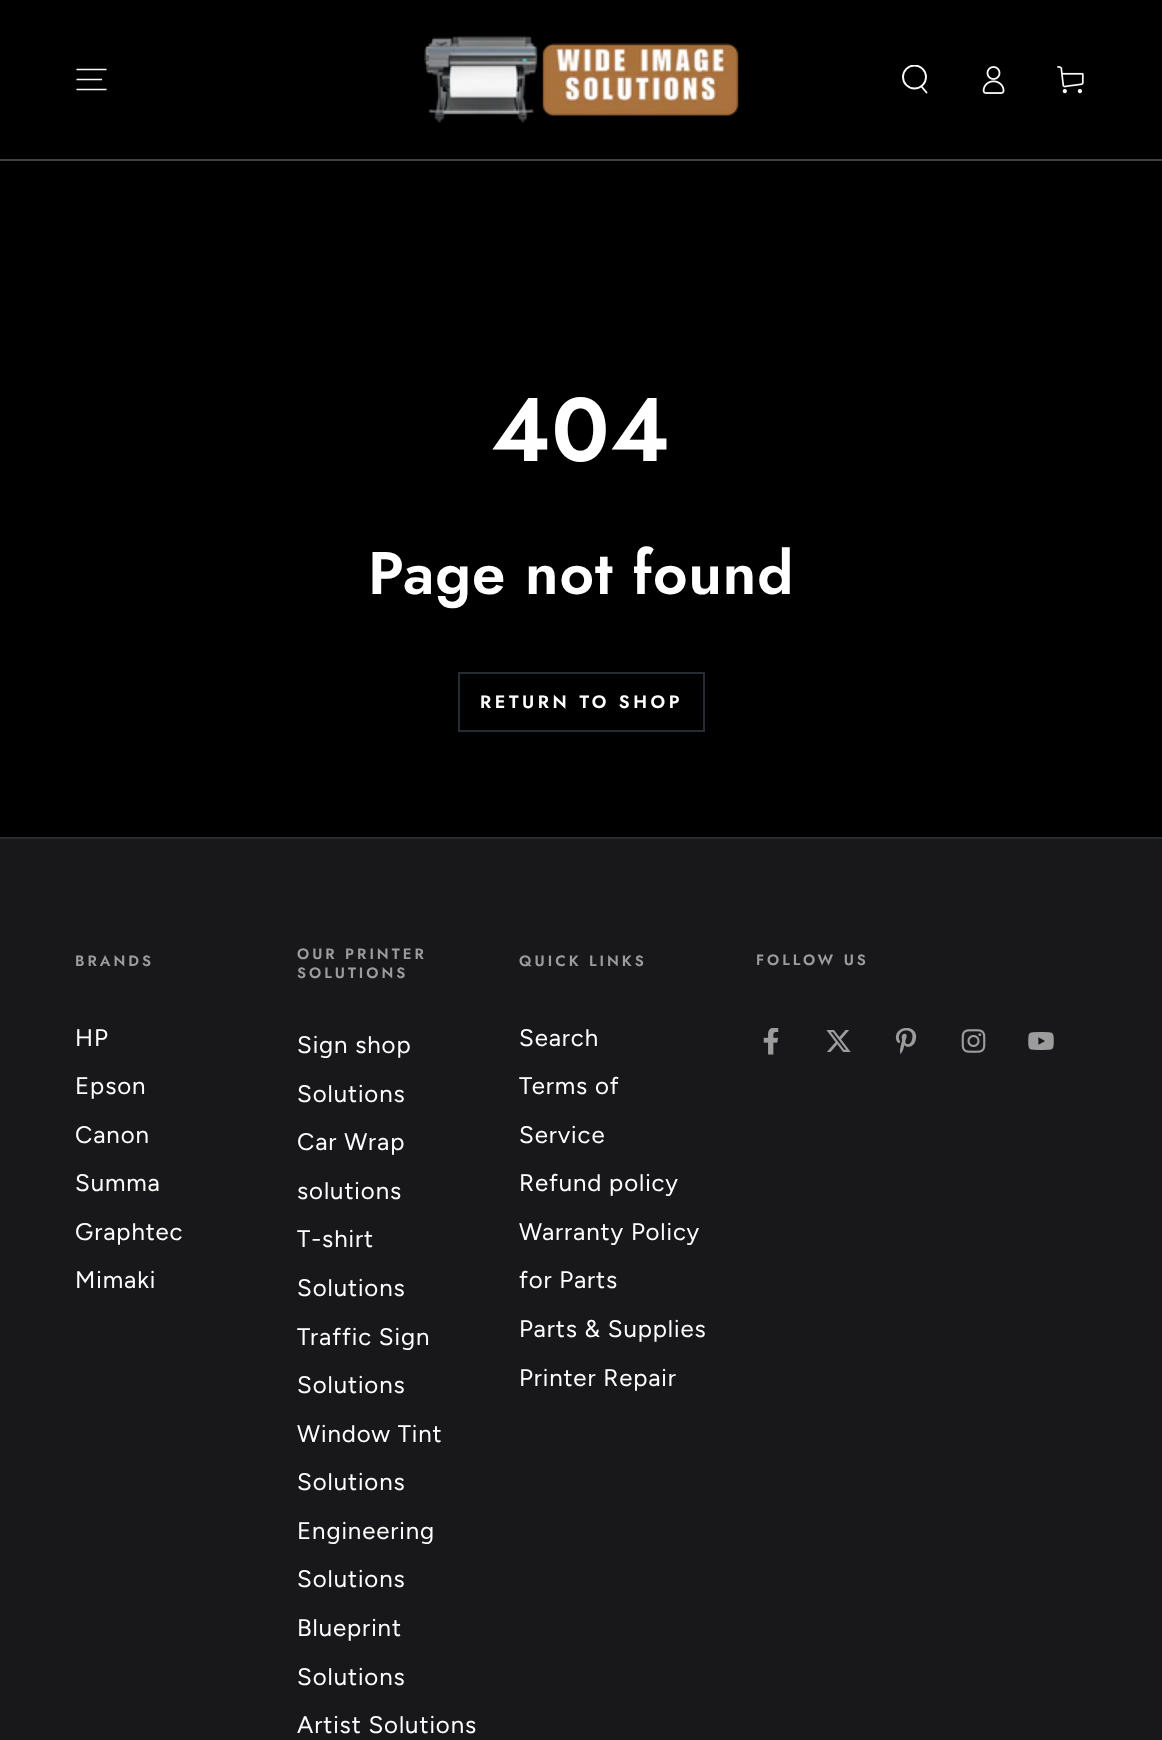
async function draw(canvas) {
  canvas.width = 1162
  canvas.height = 1740
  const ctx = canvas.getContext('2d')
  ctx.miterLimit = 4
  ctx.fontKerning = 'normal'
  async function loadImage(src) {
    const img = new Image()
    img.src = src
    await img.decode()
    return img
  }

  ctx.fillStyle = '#000'
  ctx.fillRect(0, 0, 1162, 1740)
  ctx.fillStyle = '#3f4041'
  ctx.beginPath()
  ctx.moveTo(0, 159)
  ctx.lineTo(0, 161)
  ctx.lineTo(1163, 161)
  ctx.lineTo(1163, 2)
  ctx.lineTo(1162, 2)
  ctx.lineTo(1162, 159)
  ctx.closePath()
  ctx.fill()
  ctx.beginPath()
  ctx.moveTo(76.5, 89.5)
  ctx.lineTo(106.5, 89.5)
  ctx.moveTo(76.5, 79.5)
  ctx.lineTo(102, 79.5)
  ctx.moveTo(76.5, 69.5)
  ctx.lineTo(106.5, 69.5)
  ctx.strokeStyle = '#fafafa'
  ctx.lineWidth = 1.7
  ctx.stroke()
  ctx.drawImage(await loadImage('image0.png'), 424, 36, 315, 88)
  ctx.save()
  ctx.beginPath()
  ctx.rect(900, 65, 30, 30)
  ctx.clip()
  ctx.beginPath()
  ctx.arc(914.5, 77, 11.5, 0, 2 * Math.PI)
  ctx.lineWidth = 1.9
  ctx.stroke()
  ctx.restore()
  ctx.beginPath()
  ctx.moveTo(921.5, 86.5)
  ctx.lineTo(926.5, 92.5)
  ctx.lineWidth = 1.9
  ctx.lineCap = 'round'
  ctx.stroke()
  ctx.drawImage(await loadImage('image1.png'), 982, 66, 23, 28)
  ctx.drawImage(await loadImage('image2.png'), 1057, 66, 27, 28)
  ctx.letterSpacing = '0.9px'
  ctx.font = '600 90px Jost'
  ctx.fillStyle = '#fff'
  ctx.fillText('404', 491, 461)
  ctx.font = '600 60px Jost'
  ctx.fillText('Page not found', 368, 594)
  ctx.strokeStyle = '#272c32'
  ctx.lineWidth = 2
  ctx.strokeRect(459, 673, 245, 58)
  ctx.letterSpacing = '3.6px'
  ctx.font = '600 18px Jost'
  ctx.fillText('RETURN TO SHOP', 480, 708)
  ctx.fillStyle = '#18181a'
  ctx.fillRect(0, 839, 1162, 901)
  ctx.fillStyle = '#272c32'
  ctx.fillRect(0, 837, 1162, 2)
  ctx.letterSpacing = '3px'
  ctx.font = '600 15px Jost'
  ctx.fillStyle = '#9c9c9c'
  ctx.fillText('BRANDS', 75, 966)
  ctx.letterSpacing = '0.9px'
  ctx.font = '24px Figtree'
  ctx.fillStyle = '#fff'
  ctx.fillText('HP', 75, 1046)
  ctx.fillText('Epson', 75, 1094)
  ctx.fillText('Canon', 75, 1143)
  ctx.fillText('Summa', 75, 1191)
  ctx.fillText('Graphtec', 75, 1240)
  ctx.fillText('Mimaki', 75, 1288)
  ctx.letterSpacing = '3px'
  ctx.font = '600 15px Jost'
  ctx.fillStyle = '#9c9c9c'
  ctx.fillText('OUR PRINTER', 297, 959)
  ctx.fillText('SOLUTIONS', 297, 978)
  ctx.letterSpacing = '0.9px'
  ctx.font = '24px Figtree'
  ctx.fillStyle = '#fff'
  ctx.fillText('Sign shop', 297, 1053)
  ctx.fillText('Solutions', 297, 1102)
  ctx.fillText('Car Wrap', 297, 1150)
  ctx.fillText('solutions', 297, 1199)
  ctx.fillText('T-shirt', 297, 1247)
  ctx.fillText('Solutions', 297, 1296)
  ctx.fillText('Traffic Sign', 297, 1345)
  ctx.fillText('Solutions', 297, 1393)
  ctx.fillText('Window Tint', 297, 1442)
  ctx.fillText('Solutions', 297, 1490)
  ctx.fillText('Engineering', 297, 1539)
  ctx.fillText('Solutions', 297, 1587)
  ctx.fillText('Blueprint', 297, 1636)
  ctx.fillText('Solutions', 297, 1685)
  ctx.fillText('Artist Solutions', 297, 1733)
  ctx.letterSpacing = '3px'
  ctx.font = '600 15px Jost'
  ctx.fillStyle = '#9c9c9c'
  ctx.fillText('QUICK LINKS', 519, 966)
  ctx.letterSpacing = '0.9px'
  ctx.font = '24px Figtree'
  ctx.fillStyle = '#fff'
  ctx.fillText('Search', 519, 1046)
  ctx.fillText('Terms of', 519, 1094)
  ctx.fillText('Service', 519, 1143)
  ctx.fillText('Refund policy', 519, 1191)
  ctx.fillText('Warranty Policy', 519, 1240)
  ctx.fillText('for Parts', 519, 1288)
  ctx.fillText('Parts & Supplies', 519, 1337)
  ctx.fillText('Printer Repair', 519, 1386)
  ctx.letterSpacing = '3px'
  ctx.font = '600 15px Jost'
  ctx.fillStyle = '#9c9c9c'
  ctx.fillText('FOLLOW US', 756, 965)
  ctx.drawImage(await loadImage('image3.png'), 763, 1028, 16, 27)
  ctx.drawImage(await loadImage('image4.png'), 826, 1030, 25, 22)
  ctx.drawImage(await loadImage('image5.png'), 895, 1028, 22, 27)
  ctx.drawImage(await loadImage('image6.png'), 961, 1029, 25, 24)
  ctx.drawImage(await loadImage('image7.png'), 1028, 1032, 26, 18)
}

draw(document.querySelector('canvas'))
